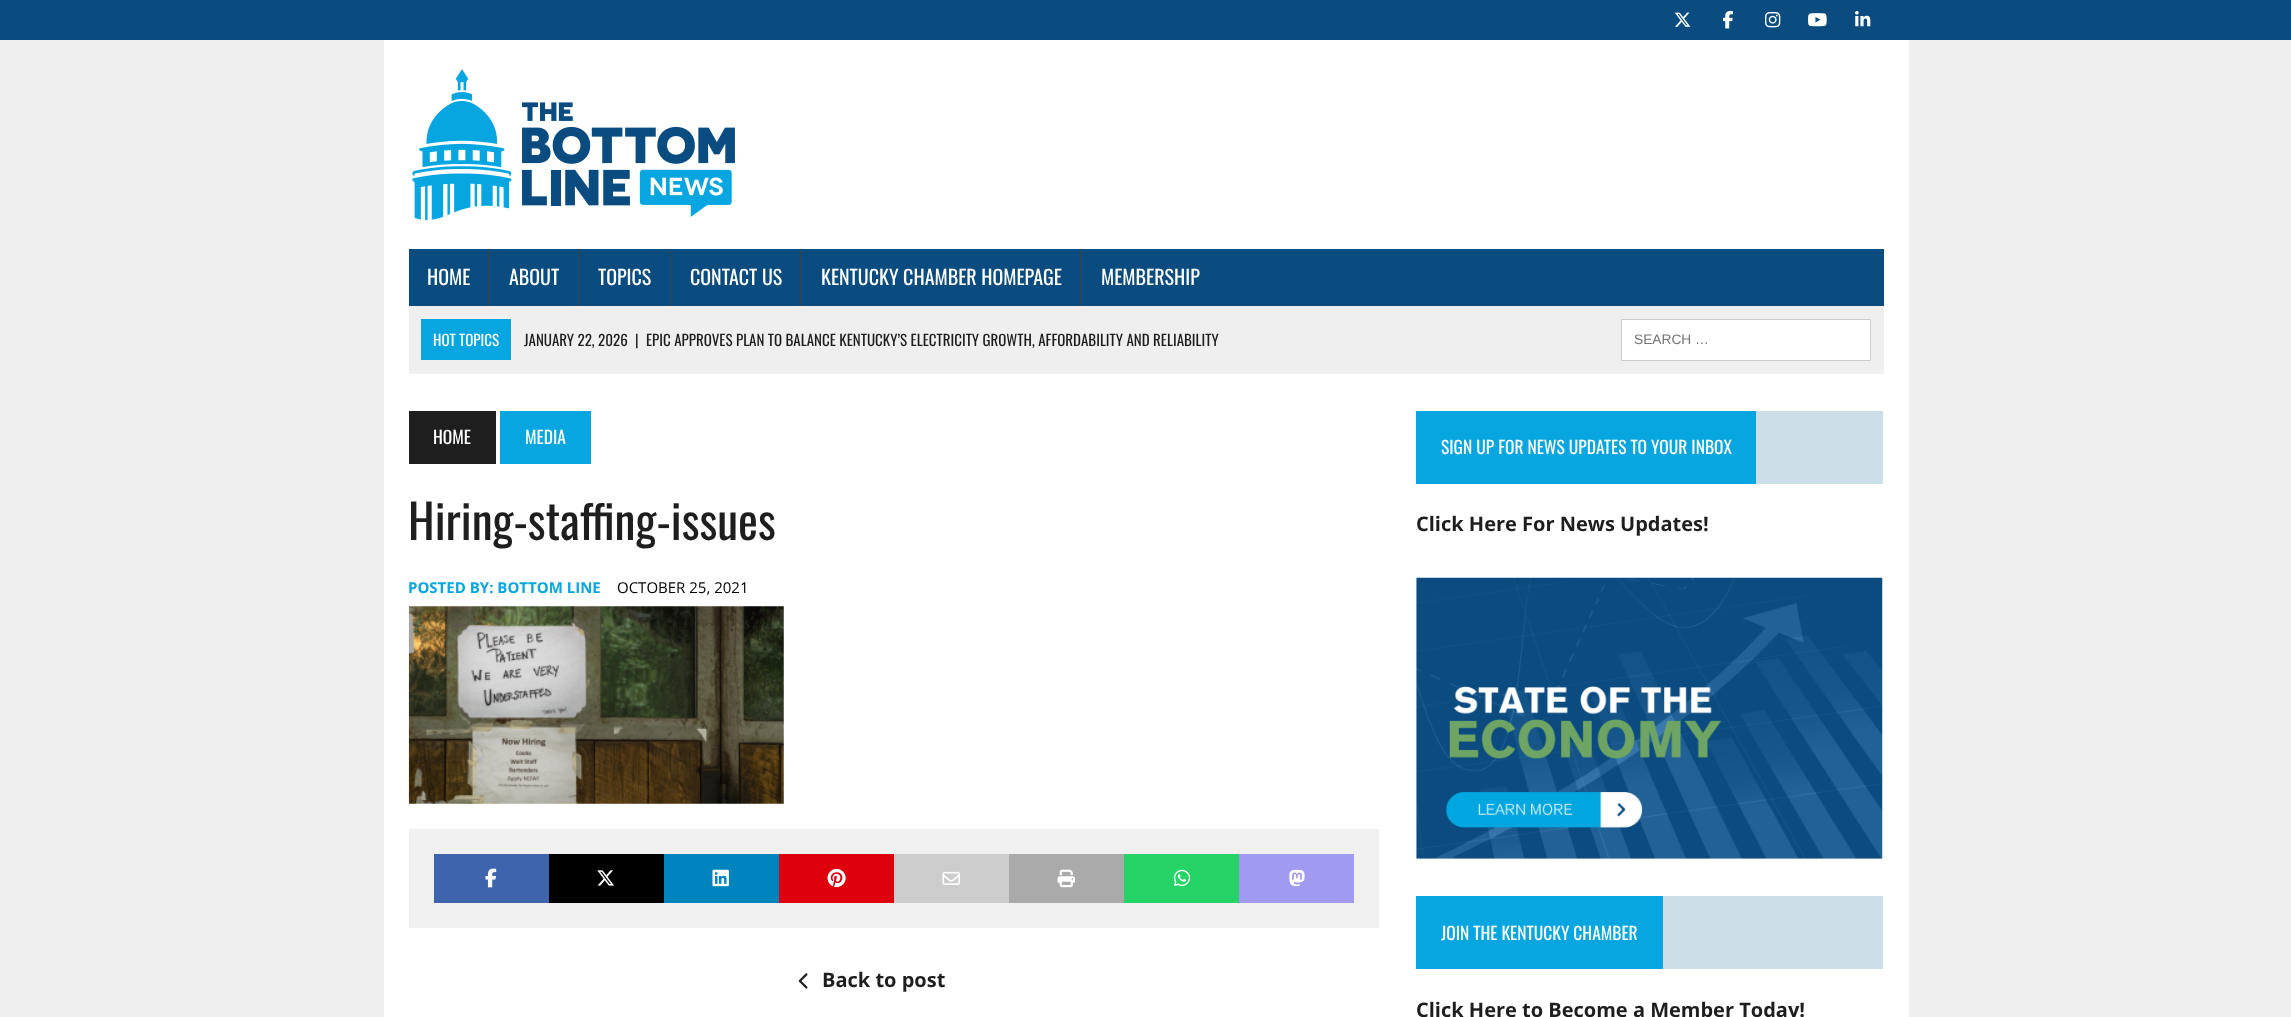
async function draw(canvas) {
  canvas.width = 2291
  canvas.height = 1017
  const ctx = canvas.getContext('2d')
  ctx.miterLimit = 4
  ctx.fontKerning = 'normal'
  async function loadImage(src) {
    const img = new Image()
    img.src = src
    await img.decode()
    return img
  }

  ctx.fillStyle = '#efefef'
  ctx.fillRect(0, 0, 2291, 1017)
  ctx.fillStyle = '#0a4c80'
  ctx.fillRect(0, 0, 2291, 40)
  ctx.drawImage(await loadImage('image0.png'), 1674, 12, 17, 15)
  ctx.drawImage(await loadImage('image1.png'), 1722, 10, 11, 19)
  ctx.drawImage(await loadImage('image2.png'), 1765, 12, 16, 16)
  ctx.drawImage(await loadImage('image3.png'), 1808, 13, 19, 14)
  ctx.drawImage(await loadImage('image4.png'), 1855, 11, 16, 16)
  ctx.fillStyle = '#fff'
  ctx.fillRect(384, 40, 1525, 977)
  ctx.drawImage(await loadImage('image5.png'), 412, 69, 323, 151)
  ctx.fillStyle = '#0a4c80'
  ctx.fillRect(409, 249, 1475, 57)
  ctx.font = '20px Oswald'
  ctx.fillStyle = '#fff'
  ctx.fillText('HOME', 427, 285)
  ctx.fillStyle = '#424242'
  ctx.fillRect(489, 249, 1, 57)
  ctx.fillStyle = '#fff'
  ctx.fillText('ABOUT', 509, 285)
  ctx.fillStyle = '#424242'
  ctx.fillRect(578, 249, 1, 57)
  ctx.fillStyle = '#fff'
  ctx.fillText('TOPICS', 598, 285)
  ctx.fillStyle = '#424242'
  ctx.fillRect(670, 249, 1, 57)
  ctx.fillStyle = '#fff'
  ctx.fillText('CONTACT US', 690, 285)
  ctx.fillStyle = '#424242'
  ctx.fillRect(801, 249, 1, 57)
  ctx.fillStyle = '#fff'
  ctx.fillText('KENTUCKY CHAMBER HOMEPAGE', 821, 285)
  ctx.fillStyle = '#424242'
  ctx.fillRect(1081, 249, 1, 57)
  ctx.fillStyle = '#fff'
  ctx.fillText('MEMBERSHIP', 1101, 285)
  ctx.fillStyle = '#efefef'
  ctx.fillRect(409, 306, 1475, 68)
  ctx.fillStyle = '#08a6e0'
  ctx.fillRect(421, 319, 90, 41)
  ctx.font = '15px Oswald'
  ctx.fillStyle = '#fff'
  ctx.fillText('HOT TOPICS', 433, 346)
  ctx.fillStyle = '#1f1e1e'
  ctx.fillText('JANUARY 22, 2026', 524, 346)
  ctx.fillText('|', 635, 346)
  ctx.fillText('EPIC APPROVES PLAN TO BALANCE KENTUCKY’S ELECTRICITY GROWTH, AFFORDABILITY AND RELIABILITY', 646, 346)
  ctx.fillStyle = '#fff'
  ctx.beginPath()
  ctx.rect(1621.5, 319.5, 249, 41)
  ctx.fill()
  ctx.strokeStyle = '#cdcdcd'
  ctx.stroke()
  ctx.font = '13.75px Liberation Sans'
  ctx.fillStyle = '#757575'
  ctx.fillText('SEARCH …', 1634, 344)
  ctx.fillStyle = '#1f1e1e'
  ctx.fillRect(409, 411, 87, 53)
  ctx.font = '17.5px Oswald'
  ctx.fillStyle = '#fff'
  ctx.fillText('HOME', 433, 444)
  ctx.fillStyle = '#08a6e0'
  ctx.fillRect(500, 411, 91, 53)
  ctx.fillStyle = '#fff'
  ctx.fillText('MEDIA', 525, 444)
  ctx.font = '47.5px Oswald'
  ctx.fillStyle = '#1f1e1e'
  ctx.fillText('Hiring-staffing-issues', 408, 540)
  ctx.font = 'bold 15px Open Sans'
  ctx.fillStyle = '#08a6e0'
  ctx.fillText('POSTED BY: BOTTOM LINE', 408, 593)
  ctx.font = '15px Open Sans'
  ctx.fillStyle = '#000'
  ctx.fillText('OCTOBER 25, 2021', 617, 593)
  ctx.drawImage(await loadImage('image6.png'), 408, 606, 376, 198)
  ctx.fillStyle = '#f0f0f0'
  ctx.fillRect(409, 829, 970, 99)
  ctx.fillStyle = '#3e64ad'
  ctx.fillRect(434, 854, 115, 49)
  ctx.drawImage(await loadImage('image7.png'), 485, 868, 12, 20)
  ctx.fillStyle = '#000'
  ctx.fillRect(549, 854, 115, 49)
  ctx.drawImage(await loadImage('image8.png'), 597, 870, 17, 16)
  ctx.fillStyle = '#0084bf'
  ctx.fillRect(664, 854, 115, 49)
  ctx.drawImage(await loadImage('image9.png'), 712, 869, 17, 18)
  ctx.fillStyle = '#de010d'
  ctx.fillRect(779, 854, 115, 49)
  ctx.drawImage(await loadImage('image10.png'), 827, 868, 19, 20)
  ctx.fillStyle = '#ccc'
  ctx.fillRect(894, 854, 115, 49)
  ctx.drawImage(await loadImage('image11.png'), 942, 871, 18, 14)
  ctx.fillStyle = '#aaa'
  ctx.fillRect(1009, 854, 115, 49)
  ctx.drawImage(await loadImage('image12.png'), 1057, 869, 18, 19)
  ctx.fillStyle = '#25d366'
  ctx.fillRect(1124, 854, 115, 49)
  ctx.drawImage(await loadImage('image13.png'), 1173, 869, 18, 18)
  ctx.fillStyle = '#a09bf0'
  ctx.fillRect(1239, 854, 115, 49)
  ctx.drawImage(await loadImage('image14.png'), 1289, 869, 16, 18)
  ctx.drawImage(await loadImage('image15.png'), 798, 973, 10, 16)
  ctx.font = 'bold 20px Open Sans'
  ctx.fillStyle = '#1f1e1e'
  ctx.fillText('Back to post', 822, 987)
  ctx.fillStyle = '#ccdee8'
  ctx.fillRect(1756, 411, 127, 73)
  ctx.fillStyle = '#08a6e0'
  ctx.fillRect(1416, 411, 340, 73)
  ctx.font = '17.5px Oswald'
  ctx.fillStyle = '#fff'
  ctx.fillText('SIGN UP FOR NEWS UPDATES TO YOUR INBOX', 1441, 454)
  ctx.font = 'bold 20px Open Sans'
  ctx.fillStyle = '#1f1e1e'
  ctx.fillText('Click Here For News Updates!', 1416, 531)
  ctx.drawImage(await loadImage('image16.png'), 1416, 577, 467, 282)
  ctx.fillStyle = '#ccdee8'
  ctx.fillRect(1663, 896, 220, 73)
  ctx.fillStyle = '#08a6e0'
  ctx.fillRect(1416, 896, 247, 73)
  ctx.font = '17.5px Oswald'
  ctx.fillStyle = '#fff'
  ctx.fillText('JOIN THE KENTUCKY CHAMBER', 1441, 940)
  ctx.font = 'bold 20px Open Sans'
  ctx.fillStyle = '#1f1e1e'
  ctx.fillText('Click Here to Become a Member Today!', 1416, 1017)
}

draw(document.querySelector('canvas'))
